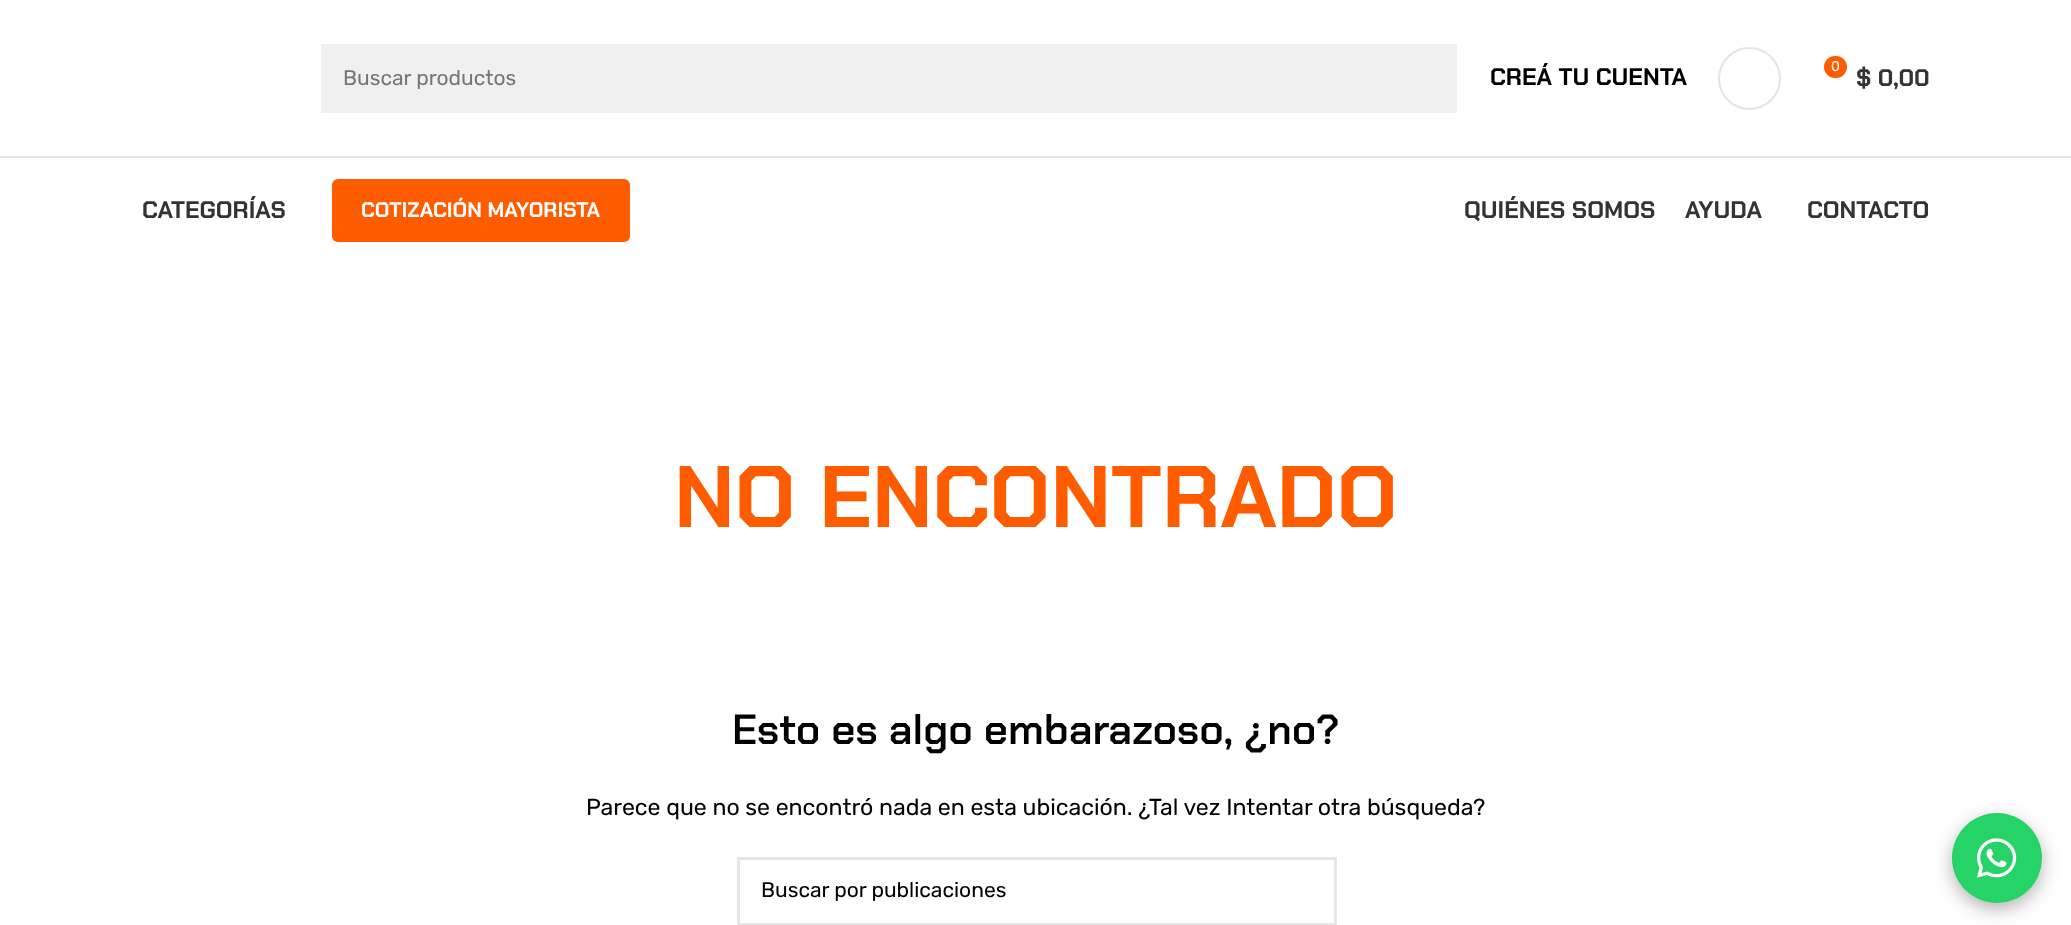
async function draw(canvas) {
  canvas.width = 2071
  canvas.height = 925
  const ctx = canvas.getContext('2d')
  ctx.miterLimit = 4
  ctx.fontKerning = 'normal'
  async function loadImage(src) {
    const img = new Image()
    img.src = src
    await img.decode()
    return img
  }

  ctx.fillStyle = '#fff'
  ctx.fillRect(0, 0, 2071, 925)
  ctx.fillStyle = '#e6e6e6'
  ctx.fillRect(0, 156, 2071, 2)
  ctx.fillStyle = '#f0f0f0'
  ctx.fillRect(321, 44, 1136, 69)
  ctx.font = '21px Rubik'
  ctx.fillStyle = '#767676'
  ctx.fillText('Buscar productos', 343, 85)
  ctx.font = 'bold 24px Chakra Petch'
  ctx.fillStyle = '#000'
  ctx.fillText('CREÁ TU CUENTA', 1490, 85)
  ctx.beginPath()
  ctx.arc(1749.5, 78.5, 30.5, 0, 2 * Math.PI)
  ctx.strokeStyle = '#e4e4e4'
  ctx.lineWidth = 2
  ctx.stroke()
  ctx.fillStyle = '#ff5c00'
  ctx.beginPath()
  ctx.roundRect(1824, 56, 23, 22, 11)
  ctx.fill()
  ctx.font = '14px Rubik'
  ctx.fillStyle = '#fff'
  ctx.fillText('0', 1831, 71)
  ctx.font = 'bold 24px Chakra Petch'
  ctx.fillStyle = '#333'
  ctx.fillText('$ 0,00', 1856, 86)
  ctx.fillText('CATEGORÍAS', 142, 218)
  ctx.fillStyle = '#ff5c00'
  ctx.beginPath()
  ctx.roundRect(332, 179, 298, 63, 6)
  ctx.fill()
  ctx.font = 'bold 21px Chakra Petch'
  ctx.fillStyle = '#fff'
  ctx.fillText('COTIZACIÓN MAYORISTA', 361, 217)
  ctx.font = 'bold 24px Chakra Petch'
  ctx.fillStyle = '#333'
  ctx.fillText('QUIÉNES SOMOS', 1464, 218)
  ctx.fillText('AYUDA', 1685, 218)
  ctx.fillText('CONTACTO', 1807, 218)
  ctx.font = 'bold 87px Chakra Petch'
  ctx.fillStyle = '#ff5c00'
  ctx.fillText('NO ENCONTRADO', 674, 527)
  ctx.font = '600 42px Chakra Petch'
  ctx.fillStyle = '#000'
  ctx.fillText('Esto es algo embarazoso, ¿no?', 732, 744)
  ctx.font = '23.1px Rubik'
  ctx.fillText('Parece que no se encontró nada en esta ubicación. ¿Tal vez Intentar otra búsqueda?', 586, 815)
  ctx.strokeStyle = '#e6e6e6'
  ctx.lineWidth = 3
  ctx.strokeRect(738.5, 858.5, 597, 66)
  ctx.font = '21px Rubik'
  ctx.fillText('Buscar por publicaciones', 761, 897)
  ctx.fillStyle = '#0000004d'
  ctx.filter = 'blur(9px)'
  ctx.beginPath()
  ctx.roundRect(1952, 819, 90, 90, 45)
  ctx.fill()
  ctx.filter = 'none'
  ctx.fillStyle = '#25d366'
  ctx.beginPath()
  ctx.arc(1997, 858, 45, 0, 2 * Math.PI)
  ctx.fill()
  ctx.drawImage(await loadImage('image0.png'), 1976, 838, 41, 40)
}

draw(document.querySelector('canvas'))
